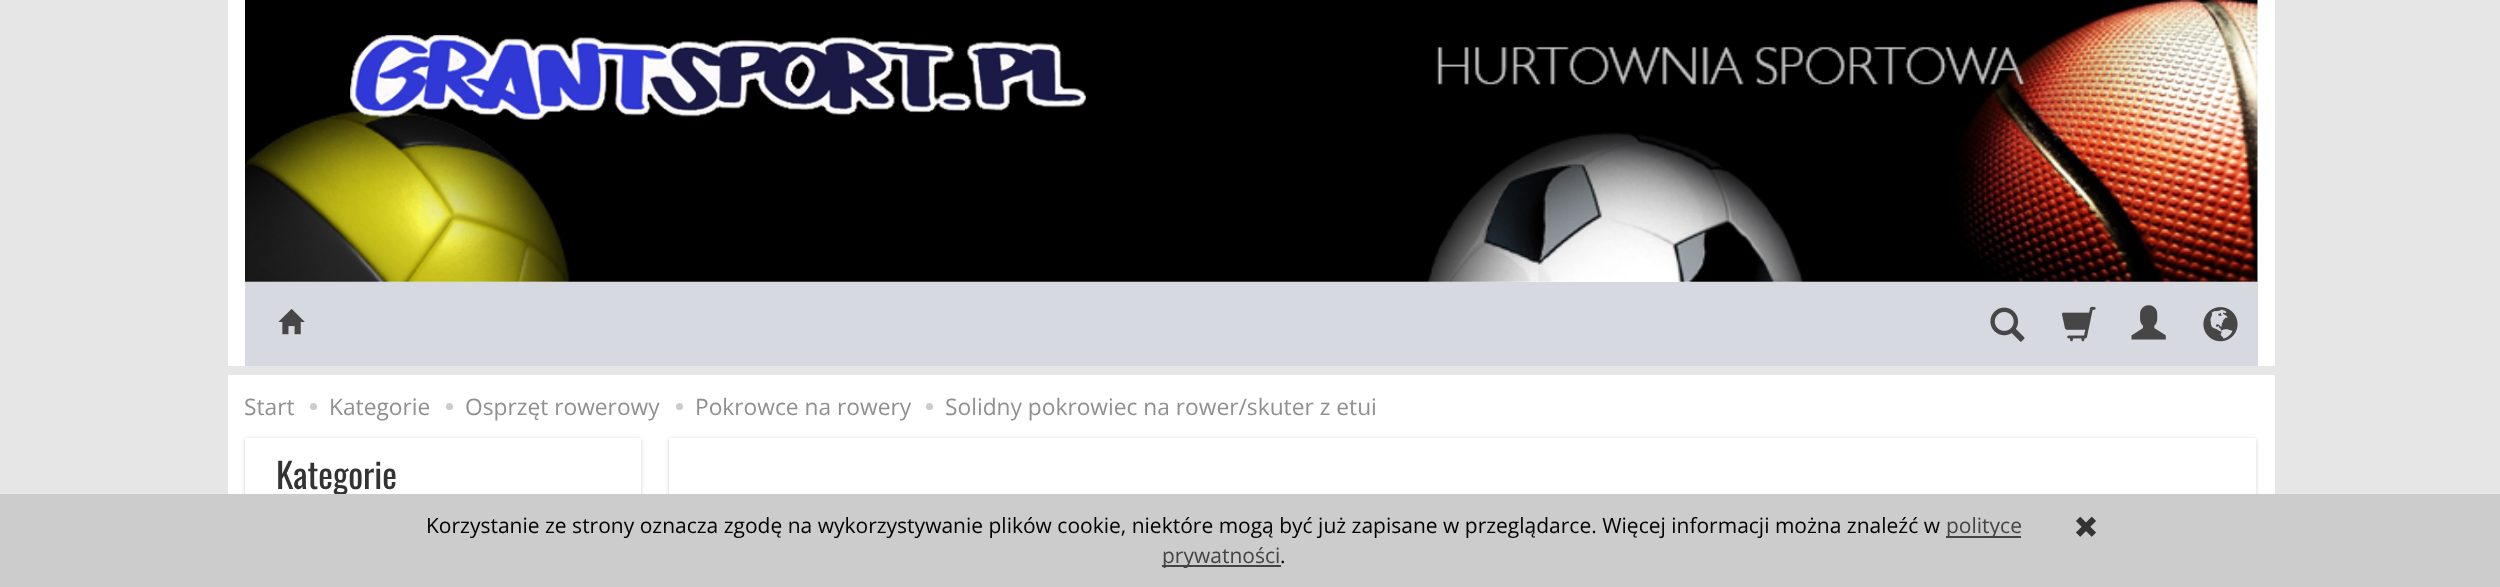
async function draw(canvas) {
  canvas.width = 2500
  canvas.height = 587
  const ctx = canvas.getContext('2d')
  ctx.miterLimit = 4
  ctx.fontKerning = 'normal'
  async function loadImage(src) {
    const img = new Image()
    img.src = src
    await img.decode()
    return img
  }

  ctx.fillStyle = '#e6e6e6'
  ctx.fillRect(0, 0, 2500, 587)
  ctx.fillStyle = '#fff'
  ctx.fillRect(228, 0, 2047, 366)
  ctx.drawImage(await loadImage('image0.png'), 245, 0, 2013, 282)
  ctx.drawImage(await loadImage('image1.png'), 350, 35, 736, 85)
  ctx.fillStyle = '#d7d9e0'
  ctx.fillRect(245, 282, 2013, 84)
  ctx.drawImage(await loadImage('image2.png'), 278, 308, 27, 27)
  ctx.drawImage(await loadImage('image3.png'), 1990, 307, 35, 35)
  ctx.drawImage(await loadImage('image4.png'), 2062, 306, 34, 36)
  ctx.drawImage(await loadImage('image5.png'), 2131, 305, 35, 35)
  ctx.drawImage(await loadImage('image6.png'), 2203, 307, 35, 35)
  ctx.fillStyle = '#fff'
  ctx.fillRect(228, 375, 2047, 119)
  ctx.font = '22.75px Open Sans'
  ctx.fillStyle = '#909090'
  ctx.fillText('Start', 244, 415)
  ctx.fillStyle = '#ccc'
  ctx.beginPath()
  ctx.arc(313.5, 406.5, 3.5, 0, 2 * Math.PI)
  ctx.fill()
  ctx.fillStyle = '#909090'
  ctx.fillText('Kategorie', 329, 415)
  ctx.fillStyle = '#ccc'
  ctx.beginPath()
  ctx.arc(449.5, 406.5, 3.5, 0, 2 * Math.PI)
  ctx.fill()
  ctx.fillStyle = '#909090'
  ctx.fillText('Osprzęt rowerowy', 465, 415)
  ctx.fillStyle = '#ccc'
  ctx.beginPath()
  ctx.arc(679.5, 406.5, 3.5, 0, 2 * Math.PI)
  ctx.fill()
  ctx.fillStyle = '#909090'
  ctx.fillText('Pokrowce na rowery', 695, 415)
  ctx.fillStyle = '#ccc'
  ctx.beginPath()
  ctx.arc(929.5, 406.5, 3.5, 0, 2 * Math.PI)
  ctx.fill()
  ctx.fillStyle = '#909090'
  ctx.fillText('Solidny pokrowiec na rower/skuter z etui', 945, 415)
  ctx.fillStyle = '#d3d3d3'
  ctx.filter = 'blur(2px)'
  ctx.beginPath()
  ctx.rect(245, 439, 396, 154)
  ctx.fill()
  ctx.filter = 'none'
  ctx.fillStyle = '#fff'
  ctx.fillRect(245, 438, 396, 56)
  ctx.font = '35px Oswald'
  ctx.fillStyle = '#333'
  ctx.fillText('Kategorie', 276, 489)
  ctx.fillStyle = '#d3d3d3'
  ctx.filter = 'blur(2px)'
  ctx.beginPath()
  ctx.rect(669, 439, 1587, 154)
  ctx.fill()
  ctx.filter = 'none'
  ctx.fillStyle = '#fff'
  ctx.fillRect(669, 438, 1587, 56)
  ctx.fillStyle = '#ccc'
  ctx.fillRect(0, 494, 2500, 93)
  ctx.font = '21px Open Sans'
  ctx.fillStyle = '#000'
  ctx.fillText('Korzystanie ze strony oznacza zgodę na wykorzystywanie plików cookie, niektóre mogą być już zapisane w przeglądarce. Więcej informacji można znaleźć w', 426, 533)
  ctx.fillStyle = '#444'
  ctx.fillRect(1946, 536, 75, 2)
  ctx.fillText('polityce', 1946, 533)
  ctx.fillRect(1162, 565, 119, 2)
  ctx.fillText('prywatności', 1162, 563)
  ctx.fillStyle = '#000'
  ctx.fillText('.', 1280, 563)
  ctx.drawImage(await loadImage('image7.png'), 2076, 516, 20, 21)
}

draw(document.querySelector('canvas'))
